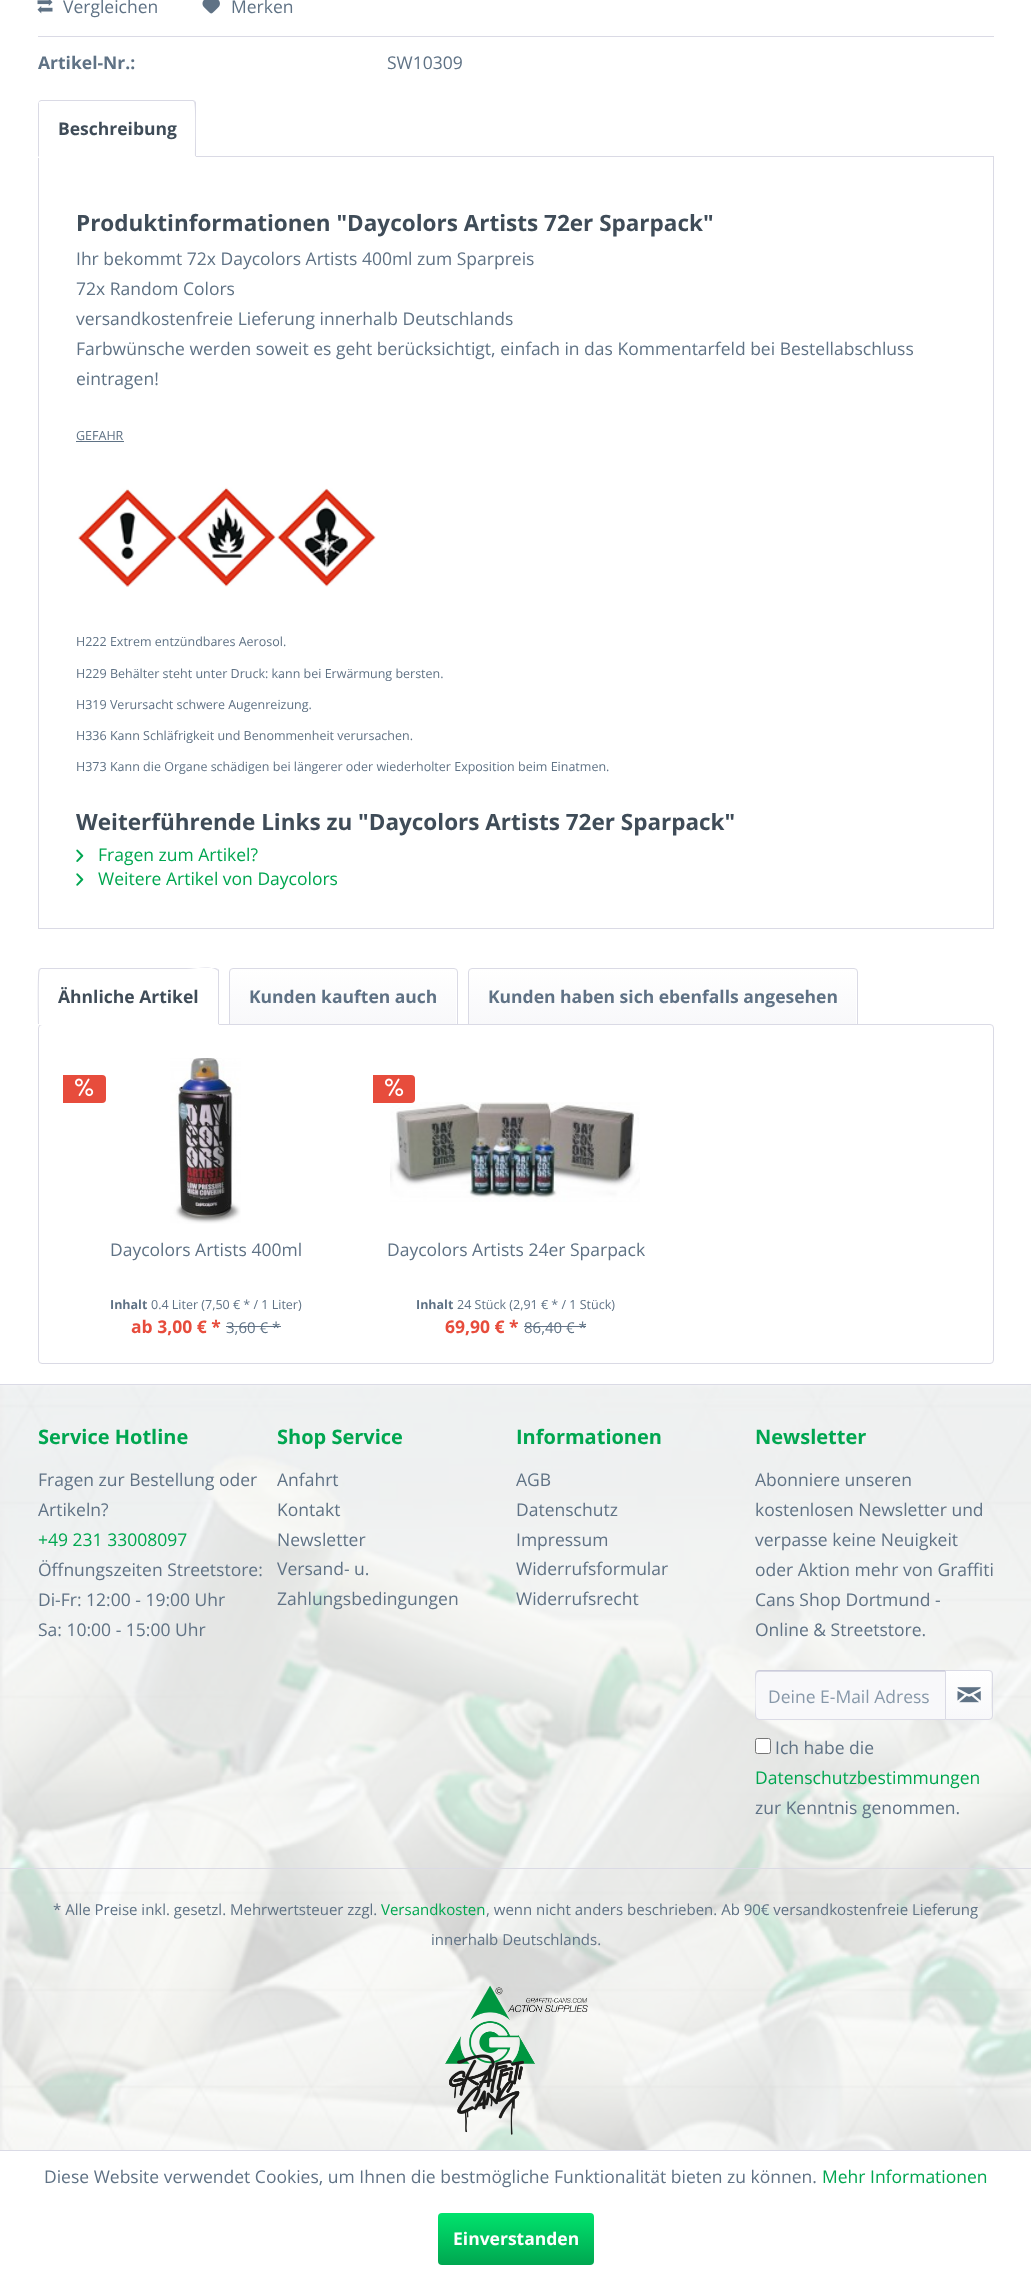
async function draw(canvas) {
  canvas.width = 1031
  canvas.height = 2277
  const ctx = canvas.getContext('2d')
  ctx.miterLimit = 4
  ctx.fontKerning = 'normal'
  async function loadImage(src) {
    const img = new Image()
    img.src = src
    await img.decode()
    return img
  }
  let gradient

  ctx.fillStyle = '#fff'
  ctx.fillRect(0, 0, 1031, 2277)
  ctx.drawImage(await loadImage('image0.png'), 0, 1385, 1031, 765)
  ctx.fillStyle = '#dadae5'
  ctx.filter = 'blur(2.5px)'
  ctx.beginPath()
  ctx.rect(-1, -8, 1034, 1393)
  ctx.fill()
  ctx.filter = 'none'
  ctx.fillStyle = '#fff'
  ctx.fillRect(0, 0, 1031, 1384)
  ctx.fillStyle = '#dadae5'
  ctx.fillRect(38, 36, 956, 1)
  ctx.drawImage(await loadImage('image1.png'), 37, 0, 16, 14)
  ctx.font = '17.5px Open Sans'
  ctx.fillStyle = '#5f7285'
  ctx.fillText('Vergleichen', 63, 13)
  ctx.drawImage(await loadImage('image2.png'), 202, 0, 18, 14)
  ctx.fillText('Merken', 231, 13)
  ctx.font = 'bold 17.5px Open Sans'
  ctx.fillText('Artikel-Nr.:', 38, 69)
  ctx.font = '17.5px Open Sans'
  ctx.fillText('SW10309', 387, 69)
  ctx.strokeStyle = '#dadae5'
  ctx.strokeRect(38.5, 156.5, 955, 772)
  ctx.fillStyle = '#fff'
  ctx.beginPath()
  ctx.roundRect(38, 100, 158, 58, [4, 4, 0, 0])
  ctx.fill()
  ctx.fillStyle = '#dadae5'
  ctx.beginPath()
  ctx.moveTo(41, 100)
  ctx.lineTo(39, 101)
  ctx.lineTo(39, 102)
  ctx.lineTo(41, 101)
  ctx.lineTo(193, 101)
  ctx.lineTo(194, 102)
  ctx.lineTo(195, 101)
  ctx.bezierCurveTo(194, 100, 193, 100, 192, 100)
  ctx.closePath()
  ctx.fill()
  ctx.beginPath()
  ctx.moveTo(195, 101)
  ctx.bezierCurveTo(196, 102, 196, 103, 196, 104)
  ctx.lineTo(196, 157)
  ctx.lineTo(195, 156)
  ctx.bezierCurveTo(195, 150, 196, 104, 194, 102)
  ctx.closePath()
  ctx.fill()
  ctx.fillStyle = '#fff'
  ctx.beginPath()
  ctx.moveTo(38, 158)
  ctx.lineTo(39, 156)
  ctx.lineTo(195, 156)
  ctx.lineTo(196, 157)
  ctx.closePath()
  ctx.fill()
  ctx.fillStyle = '#dadae5'
  ctx.beginPath()
  ctx.moveTo(39, 101)
  ctx.lineTo(38, 104)
  ctx.lineTo(38, 157)
  ctx.lineTo(39, 156)
  ctx.lineTo(39, 104)
  ctx.lineTo(39, 102)
  ctx.closePath()
  ctx.fill()
  ctx.font = 'bold 17.5px Open Sans'
  ctx.fillStyle = '#3f4c58'
  ctx.fillText('Beschreibung', 58, 135)
  ctx.font = 'bold 22.5px Open Sans'
  ctx.fillText('Produktinformationen "Daycolors Artists 72er Sparpack"', 76, 231)
  ctx.font = '17.5px Open Sans'
  ctx.fillStyle = '#5f7285'
  ctx.fillText('Ihr bekommt 72x Daycolors Artists 400ml zum Sparpreis', 76, 265)
  ctx.fillText('72x Random Colors', 76, 295)
  ctx.fillText('versandkostenfreie Lieferung innerhalb Deutschlands', 76, 325)
  ctx.fillText('Farbwünsche werden soweit es geht berücksichtigt, einfach in das Kommentarfeld bei Bestellabschluss', 76, 355)
  ctx.fillText('eintragen!', 76, 385)
  ctx.font = '12.5px Open Sans'
  ctx.fillText('GEFAHR', 76, 440)
  ctx.fillRect(76, 441, 48, 1)
  ctx.drawImage(await loadImage('image3.png'), 78, 487, 298, 100)
  ctx.fillText('H222 Extrem entzündbares Aerosol.', 76, 646)
  ctx.fillText('H229 Behälter steht unter Druck: kann bei Erwärmung bersten.', 76, 678)
  ctx.fillText('H319 Verursacht schwere Augenreizung.', 76, 709)
  ctx.fillText('H336 Kann Schläfrigkeit und Benommenheit verursachen.', 76, 740)
  ctx.fillText('H373 Kann die Organe schädigen bei längerer oder wiederholter Exposition beim Einatmen.', 76, 771)
  ctx.font = 'bold 22.5px Open Sans'
  ctx.fillStyle = '#3f4c58'
  ctx.fillText('Weiterführende Links zu "Daycolors Artists 72er Sparpack"', 76, 830)
  ctx.drawImage(await loadImage('image4.png'), 76, 849, 8, 13)
  ctx.font = '17.5px Open Sans'
  ctx.fillStyle = '#00a650'
  ctx.fillText('Fragen zum Artikel?', 98, 861)
  ctx.drawImage(await loadImage('image5.png'), 76, 873, 8, 13)
  ctx.fillText('Weitere Artikel von Daycolors', 98, 885)
  ctx.beginPath()
  ctx.roundRect(38.5, 1024.5, 955, 339, 3.5)
  ctx.stroke()
  ctx.fillStyle = '#fff'
  ctx.beginPath()
  ctx.roundRect(38, 968, 181, 57, [4, 4, 0, 0])
  ctx.fill()
  ctx.fillStyle = '#dadae5'
  ctx.beginPath()
  ctx.moveTo(41, 968)
  ctx.lineTo(39, 969)
  ctx.lineTo(40, 970)
  ctx.lineTo(41, 969)
  ctx.lineTo(186, 969)
  ctx.bezierCurveTo(196, 969, 208, 965, 217, 970)
  ctx.lineTo(218, 969)
  ctx.lineTo(215, 968)
  ctx.closePath()
  ctx.fill()
  ctx.beginPath()
  ctx.moveTo(218, 969)
  ctx.lineTo(219, 970)
  ctx.lineTo(219, 1025)
  ctx.lineTo(218, 1024)
  ctx.lineTo(218, 971)
  ctx.lineTo(217, 970)
  ctx.closePath()
  ctx.fill()
  ctx.fillStyle = '#fff'
  ctx.beginPath()
  ctx.moveTo(219, 1025)
  ctx.lineTo(218, 1024)
  ctx.lineTo(39, 1024)
  ctx.lineTo(38, 1025)
  ctx.closePath()
  ctx.fill()
  ctx.fillStyle = '#dadae5'
  ctx.beginPath()
  ctx.moveTo(39, 969)
  ctx.bezierCurveTo(37, 971, 38, 1018, 38, 1024)
  ctx.lineTo(39, 1024)
  ctx.bezierCurveTo(39, 1018, 38, 971, 40, 970)
  ctx.closePath()
  ctx.fill()
  ctx.font = 'bold 17.5px Open Sans'
  ctx.fillStyle = '#3f4c58'
  ctx.fillText('Ähnliche Artikel', 58, 1003)
  gradient = ctx.createLinearGradient(343, 969, 343, 1024)
  gradient.addColorStop(0, '#fff')
  gradient.addColorStop(1, '#f8f8fa')
  ctx.fillStyle = gradient
  ctx.beginPath()
  ctx.roundRect(230, 969, 226, 55, [2.5, 2.5, 0, 0])
  ctx.fill()
  ctx.beginPath()
  ctx.roundRect(229.5, 968.5, 228, 56, [3.5, 3.5, 0, 0])
  ctx.stroke()
  ctx.fillStyle = '#5f7285'
  ctx.fillText('Kunden kauften auch', 249, 1003)
  gradient = ctx.createLinearGradient(663, 969, 663, 1024)
  gradient.addColorStop(0, '#fff')
  gradient.addColorStop(1, '#f8f8fa')
  ctx.fillStyle = gradient
  ctx.beginPath()
  ctx.roundRect(469, 969, 387, 55, [2.5, 2.5, 0, 0])
  ctx.fill()
  ctx.beginPath()
  ctx.roundRect(468.5, 968.5, 389, 56, [3.5, 3.5, 0, 0])
  ctx.stroke()
  ctx.fillStyle = '#5f7285'
  ctx.fillText('Kunden haben sich ebenfalls angesehen', 488, 1003)
  ctx.fillStyle = '#e74c3c'
  ctx.beginPath()
  ctx.roundRect(63, 1075, 43, 28, [0, 4, 4, 0])
  ctx.fill()
  ctx.drawImage(await loadImage('image6.png'), 75, 1078, 19, 19)
  ctx.drawImage(await loadImage('image7.png'), 170, 1058, 71, 166)
  ctx.font = '17.5px Open Sans'
  ctx.fillStyle = '#5f7285'
  ctx.fillText('Daycolors Artists 400ml', 110, 1256)
  ctx.font = 'bold 12.5px Open Sans'
  ctx.fillText('Inhalt', 110, 1309)
  ctx.font = '12.5px Open Sans'
  ctx.fillText('0.4 Liter (7,50 € * / 1 Liter)', 151, 1309)
  ctx.font = 'bold 17.5px Open Sans'
  ctx.fillStyle = '#e74c3c'
  ctx.fillText('ab 3,00 € *', 131, 1333)
  ctx.font = '15px Open Sans'
  ctx.fillStyle = '#5f7285'
  ctx.fillText('3,60 € *', 226, 1333)
  ctx.fillRect(226, 1326, 55, 1)
  ctx.drawImage(await loadImage('image8.png'), 390, 1102, 250, 100)
  ctx.fillStyle = '#e74c3c'
  ctx.beginPath()
  ctx.roundRect(373, 1075, 42, 28, [0, 4, 4, 0])
  ctx.fill()
  ctx.drawImage(await loadImage('image6.png'), 385, 1078, 19, 19)
  ctx.font = '17.5px Open Sans'
  ctx.fillStyle = '#5f7285'
  ctx.fillText('Daycolors Artists 24er Sparpack', 387, 1256)
  ctx.font = 'bold 12.5px Open Sans'
  ctx.fillText('Inhalt', 416, 1309)
  ctx.font = '12.5px Open Sans'
  ctx.fillText('24 Stück (2,91 € * / 1 Stück)', 457, 1309)
  ctx.font = 'bold 17.5px Open Sans'
  ctx.fillStyle = '#e74c3c'
  ctx.fillText('69,90 € *', 445, 1333)
  ctx.font = '15px Open Sans'
  ctx.fillStyle = '#5f7285'
  ctx.fillText('86,40 € *', 524, 1333)
  ctx.fillRect(524, 1326, 62, 1)
  ctx.fillStyle = '#ffffffbf'
  ctx.fillRect(0, 1385, 1031, 765)
  ctx.fillStyle = '#dadae5'
  ctx.fillRect(0, 1384, 1031, 1)
  ctx.fillRect(0, 1868, 1031, 1)
  ctx.font = 'bold 20px Open Sans'
  ctx.fillStyle = '#00a650'
  ctx.fillText('Service Hotline', 38, 1444)
  ctx.font = '17.5px Open Sans'
  ctx.fillStyle = '#5f7285'
  ctx.fillText('Fragen zur Bestellung oder', 38, 1486)
  ctx.fillText('Artikeln?', 38, 1516)
  ctx.fillStyle = '#00a650'
  ctx.fillText('+49 231 33008097', 38, 1546)
  ctx.fillStyle = '#5f7285'
  ctx.fillText('Öffnungszeiten Streetstore:', 38, 1576)
  ctx.fillText('Di-Fr: 12:00 - 19:00 Uhr', 38, 1606)
  ctx.fillText('Sa: 10:00 - 15:00 Uhr', 38, 1636)
  ctx.font = 'bold 20px Open Sans'
  ctx.fillStyle = '#00a650'
  ctx.fillText('Shop Service', 277, 1444)
  ctx.font = '17.5px Open Sans'
  ctx.fillStyle = '#5f7285'
  ctx.fillText('Anfahrt', 277, 1486)
  ctx.fillText('Kontakt', 277, 1516)
  ctx.fillText('Newsletter', 277, 1546)
  ctx.fillText('Versand- u.', 277, 1575)
  ctx.fillText('Zahlungsbedingungen', 277, 1605)
  ctx.font = 'bold 20px Open Sans'
  ctx.fillStyle = '#00a650'
  ctx.fillText('Informationen', 516, 1444)
  ctx.font = '17.5px Open Sans'
  ctx.fillStyle = '#5f7285'
  ctx.fillText('AGB', 516, 1486)
  ctx.fillText('Datenschutz', 516, 1516)
  ctx.fillText('Impressum', 516, 1546)
  ctx.fillText('Widerrufsformular', 516, 1575)
  ctx.fillText('Widerrufsrecht', 516, 1605)
  ctx.font = 'bold 20px Open Sans'
  ctx.fillStyle = '#00a650'
  ctx.fillText('Newsletter', 755, 1444)
  ctx.font = '17.5px Open Sans'
  ctx.fillStyle = '#5f7285'
  ctx.fillText('Abonniere unseren', 755, 1486)
  ctx.fillText('kostenlosen Newsletter und', 755, 1516)
  ctx.fillText('verpasse keine Neuigkeit', 755, 1546)
  ctx.fillText('oder Aktion mehr von Graffiti', 755, 1576)
  ctx.fillText('Cans Shop Dortmund -', 755, 1606)
  ctx.fillText('Online & Streetstore.', 755, 1636)
  ctx.fillStyle = '#f8f8fa'
  ctx.beginPath()
  ctx.roundRect(756, 1671, 189, 48, [2.5, 0, 0, 2.5])
  ctx.fill()
  ctx.fillStyle = '#dadae5'
  ctx.beginPath()
  ctx.moveTo(759, 1672)
  ctx.lineTo(945, 1672)
  ctx.lineTo(945, 1671)
  ctx.lineTo(758, 1671)
  ctx.bezierCurveTo(756, 1671, 756, 1673, 756, 1675)
  ctx.bezierCurveTo(756, 1674, 757, 1672, 759, 1672)
  ctx.closePath()
  ctx.fill()
  ctx.fillStyle = '#cbcbdb'
  ctx.beginPath()
  ctx.moveTo(759, 1670)
  ctx.lineTo(756, 1671)
  ctx.lineTo(757, 1672)
  ctx.lineTo(759, 1671)
  ctx.lineTo(945, 1671)
  ctx.lineTo(946, 1670)
  ctx.closePath()
  ctx.fill()
  ctx.fillStyle = '#dadae5'
  ctx.beginPath()
  ctx.moveTo(759, 1720)
  ctx.lineTo(946, 1720)
  ctx.lineTo(945, 1719)
  ctx.lineTo(759, 1719)
  ctx.lineTo(757, 1718)
  ctx.lineTo(756, 1719)
  ctx.closePath()
  ctx.fill()
  ctx.beginPath()
  ctx.moveTo(755, 1674)
  ctx.lineTo(755, 1716)
  ctx.bezierCurveTo(755, 1717, 756, 1718, 756, 1719)
  ctx.lineTo(757, 1718)
  ctx.bezierCurveTo(755, 1717, 755, 1673, 757, 1672)
  ctx.lineTo(756, 1671)
  ctx.closePath()
  ctx.fill()
  ctx.fillStyle = '#8798a9'
  ctx.fillText('Deine E-Mail Adress', 768, 1703)
  gradient = ctx.createLinearGradient(969, 1671, 969, 1719)
  gradient.addColorStop(0, '#fff')
  gradient.addColorStop(1, '#f8f8fa')
  ctx.fillStyle = gradient
  ctx.beginPath()
  ctx.roundRect(946, 1671, 45, 48, [0, 2.5, 2.5, 0])
  ctx.fill()
  ctx.beginPath()
  ctx.roundRect(945.5, 1670.5, 47, 49, [0, 3.5, 3.5, 0])
  ctx.stroke()
  ctx.drawImage(await loadImage('image9.png'), 957, 1687, 24, 16)
  ctx.fillStyle = '#fff'
  ctx.beginPath()
  ctx.roundRect(755.5, 1738.5, 15, 15, 2)
  ctx.fill()
  ctx.strokeStyle = '#767676'
  ctx.stroke()
  ctx.fillStyle = '#5f7285'
  ctx.fillText('Ich habe die', 775, 1754)
  ctx.fillStyle = '#00a650'
  ctx.fillText('Datenschutzbestimmungen', 755, 1784)
  ctx.fillStyle = '#5f7285'
  ctx.fillText('zur Kenntnis genommen.', 755, 1814)
  ctx.font = '15px Open Sans'
  ctx.fillText('* Alle Preise inkl. gesetzl. Mehrwertsteuer zzgl.', 53, 1915)
  ctx.fillStyle = '#00a650'
  ctx.fillText('Versandkosten', 381, 1915)
  ctx.fillStyle = '#5f7285'
  ctx.fillText(', wenn nicht anders beschrieben. Ab 90€ versandkostenfreie Lieferung', 486, 1915)
  ctx.fillText('innerhalb Deutschlands.', 431, 1945)
  ctx.drawImage(await loadImage('image10.png'), 445, 1985, 143, 150)
  ctx.fillStyle = '#dadae5'
  ctx.fillRect(0, 2150, 1031, 1)
  ctx.font = '17.5px Open Sans'
  ctx.fillStyle = '#5f7285'
  ctx.fillText('Diese Website verwendet Cookies, um Ihnen die bestmögliche Funktionalität bieten zu können.', 44, 2183)
  ctx.fillStyle = '#00a650'
  ctx.fillText('Mehr Informationen', 822, 2183)
  gradient = ctx.createLinearGradient(516, 2213, 516, 2265)
  gradient.addColorStop(0, '#00e36d')
  gradient.addColorStop(1, '#00a650')
  ctx.fillStyle = gradient
  ctx.beginPath()
  ctx.roundRect(438, 2213, 156, 52, 4)
  ctx.fill()
  ctx.font = 'bold 17.5px Open Sans'
  ctx.fillStyle = '#fff'
  ctx.fillText('Einverstanden', 453, 2245)
}

draw(document.querySelector('canvas'))
